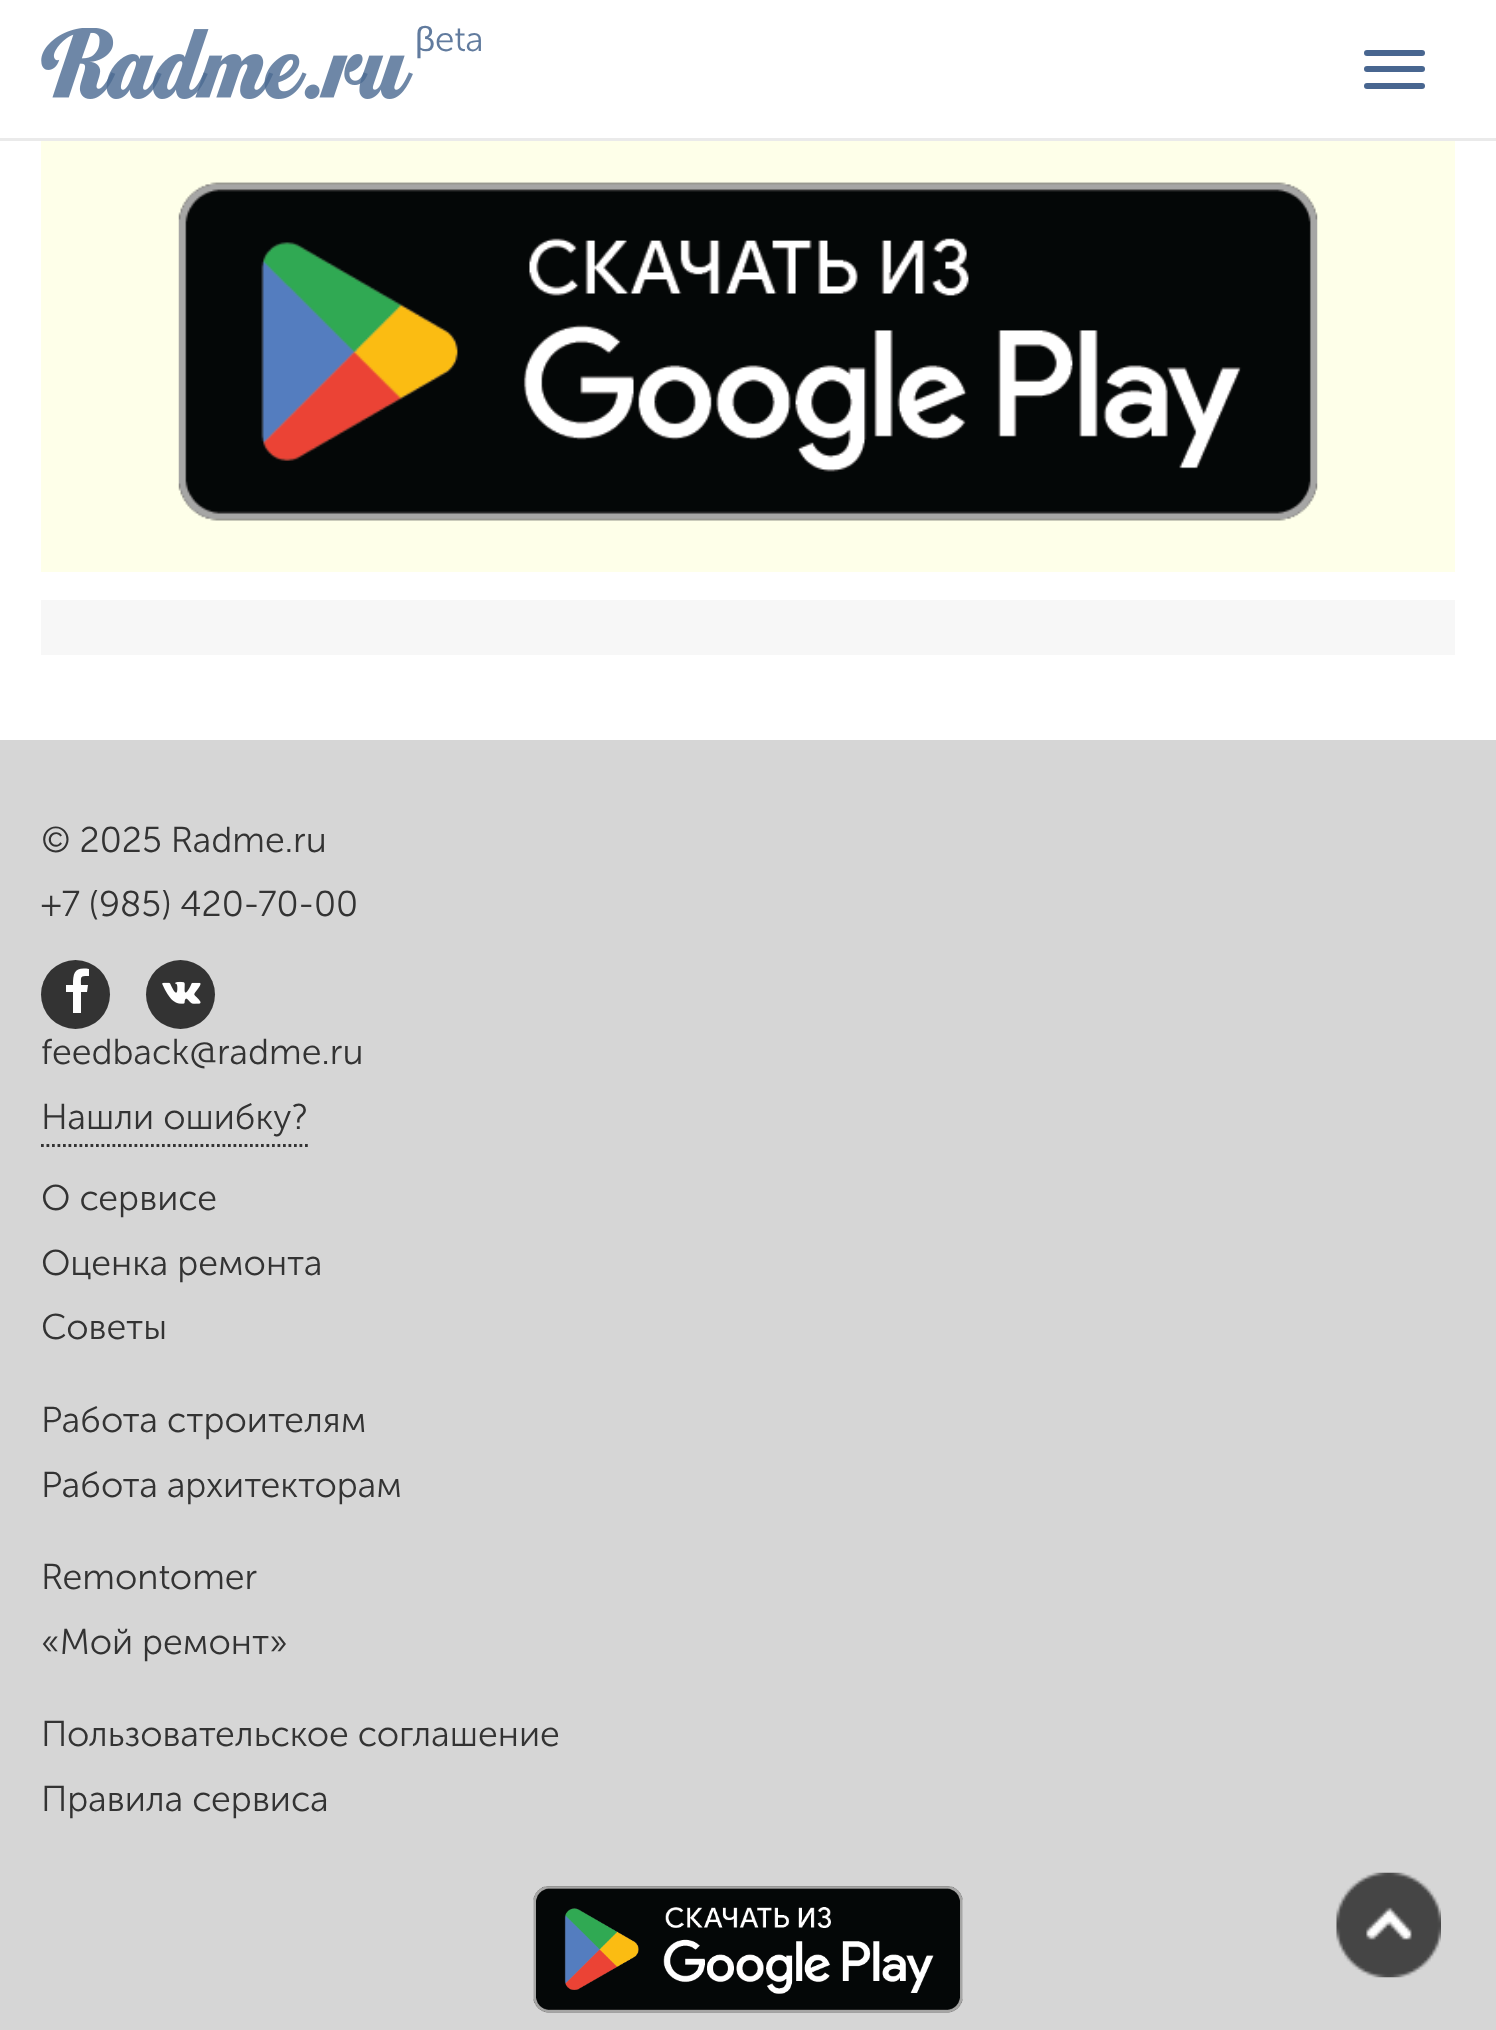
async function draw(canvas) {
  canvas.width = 1496
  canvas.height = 2030
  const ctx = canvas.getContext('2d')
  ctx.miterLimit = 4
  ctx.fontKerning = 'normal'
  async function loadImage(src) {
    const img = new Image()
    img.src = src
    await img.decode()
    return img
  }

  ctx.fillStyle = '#fff'
  ctx.fillRect(0, 0, 1496, 2030)
  ctx.fillStyle = '#eaeaea'
  ctx.fillRect(0, 138, 1496, 3)
  ctx.drawImage(await loadImage('image0.png'), 41, 28, 372, 71)
  ctx.font = '35px Liberation Sans'
  ctx.fillStyle = '#617b9e'
  ctx.fillText('β', 415, 51)
  ctx.font = '300 35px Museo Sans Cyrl'
  ctx.fillText('eta', 435, 51)
  ctx.fillStyle = '#486690'
  ctx.beginPath()
  ctx.roundRect(1364, 50, 61, 6, 3)
  ctx.fill()
  ctx.beginPath()
  ctx.roundRect(1364, 66, 61, 6, 3)
  ctx.fill()
  ctx.beginPath()
  ctx.roundRect(1364, 83, 61, 6, 3)
  ctx.fill()
  ctx.fillStyle = '#feffe9'
  ctx.fillRect(41, 141, 1414, 431)
  ctx.drawImage(await loadImage('image1.png'), 178, 182, 1140, 339)
  ctx.fillStyle = '#f7f7f7'
  ctx.fillRect(41, 600, 1414, 55)
  ctx.fillStyle = '#d6d6d6'
  ctx.fillRect(0, 740, 1496, 1290)
  ctx.font = '300 35.75px Museo Sans Cyrl'
  ctx.fillStyle = '#333'
  ctx.fillText('© 2025 Radme.ru', 41, 852)
  ctx.fillText('+7 (985) 420-70-00', 41, 916)
  ctx.beginPath()
  ctx.arc(75.5, 994.5, 34.5, 0, 2 * Math.PI)
  ctx.fill()
  ctx.fillStyle = '#fff'
  ctx.beginPath()
  ctx.moveTo(89, 969)
  ctx.lineTo(89, 976)
  ctx.bezierCurveTo(80, 976, 81, 976, 81, 985)
  ctx.lineTo(88, 985)
  ctx.lineTo(87, 992)
  ctx.lineTo(81, 992)
  ctx.lineTo(81, 1013)
  ctx.lineTo(73, 1013)
  ctx.lineTo(73, 992)
  ctx.lineTo(66, 992)
  ctx.lineTo(66, 985)
  ctx.lineTo(73, 985)
  ctx.bezierCurveTo(73, 972, 75, 967, 89, 969)
  ctx.closePath()
  ctx.fill()
  ctx.fillStyle = '#333'
  ctx.beginPath()
  ctx.arc(180.5, 994.5, 34.5, 0, 2 * Math.PI)
  ctx.fill()
  ctx.drawImage(await loadImage('image2.png'), 162, 981, 39, 23)
  ctx.fillText('feedback@radme.ru', 41, 1064)
  ctx.beginPath()
  ctx.moveTo(41, 1145.5)
  ctx.lineTo(308, 1145.5)
  ctx.strokeStyle = '#333'
  ctx.lineWidth = 2.8
  ctx.setLineDash([2.75, 2.75])
  ctx.stroke()
  ctx.fillText('Нашли ошибку?', 41, 1129)
  ctx.fillText('О сервисе', 41, 1210)
  ctx.fillText('Оценка ремонта', 41, 1275)
  ctx.fillText('Советы', 41, 1339)
  ctx.fillText('Работа строителям', 41, 1432)
  ctx.fillText('Работа архитекторам', 41, 1497)
  ctx.fillText('Remontomer', 41, 1589)
  ctx.fillText('«Мой ремонт»', 41, 1654)
  ctx.fillText('Пользовательское соглашение', 41, 1746)
  ctx.fillText('Правила сервиса', 41, 1811)
  ctx.drawImage(await loadImage('image3.png'), 533, 1886, 430, 127)
  ctx.drawImage(await loadImage('image4.png'), 1336, 1872, 105, 106)
}

draw(document.querySelector('canvas'))
